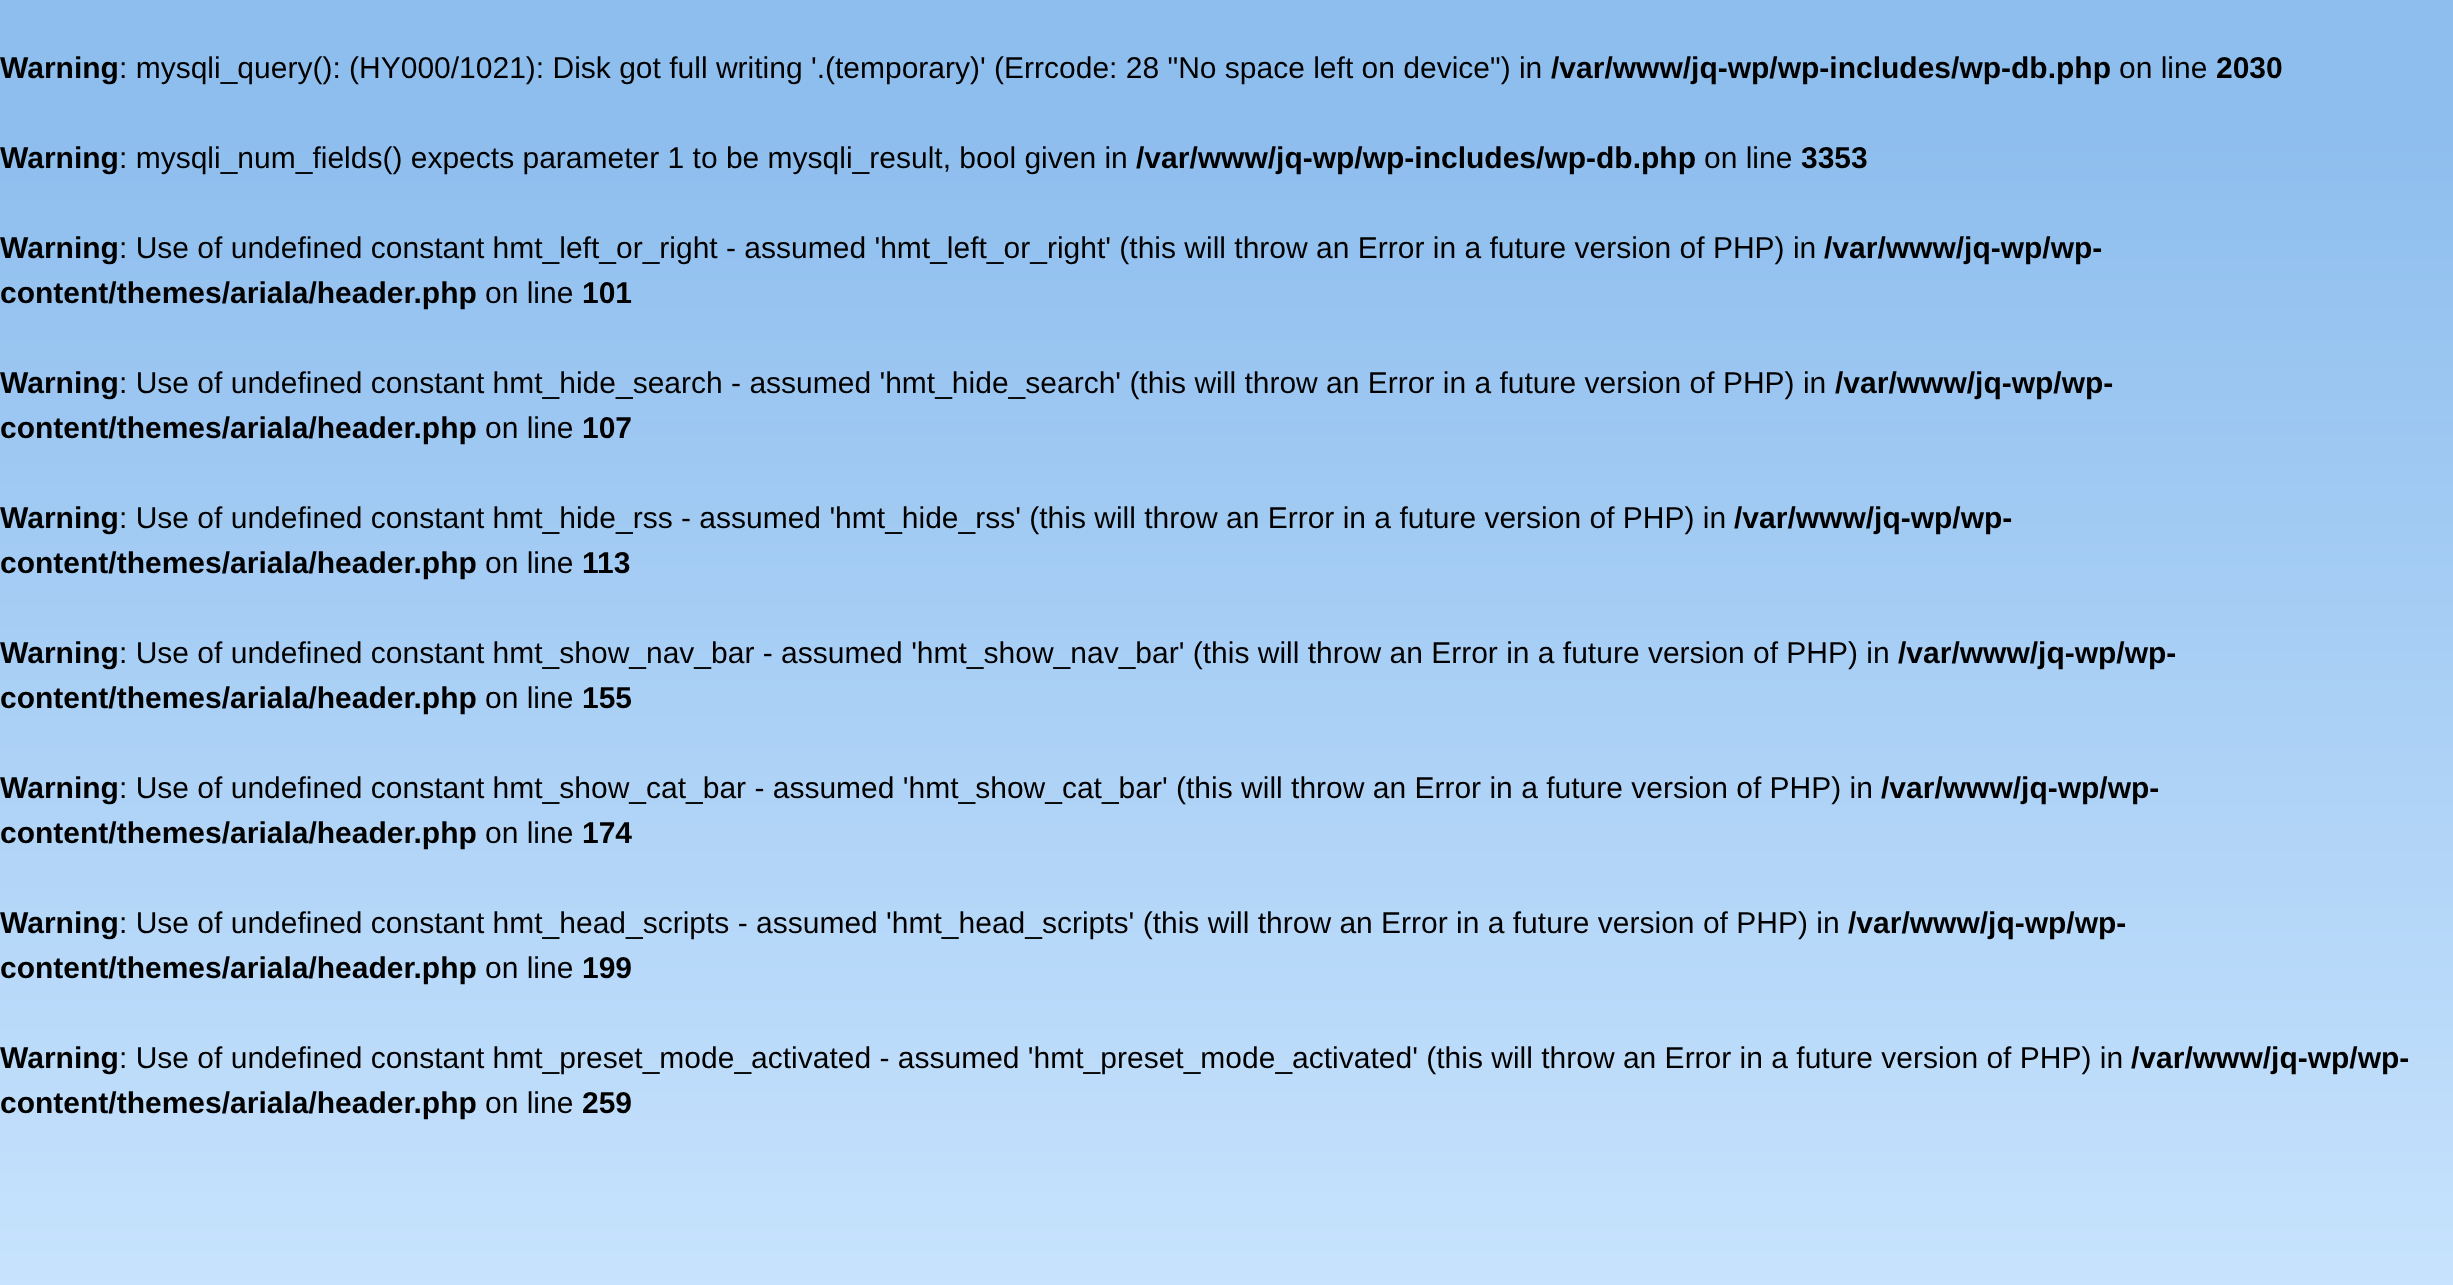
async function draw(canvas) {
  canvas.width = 2453
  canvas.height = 1285
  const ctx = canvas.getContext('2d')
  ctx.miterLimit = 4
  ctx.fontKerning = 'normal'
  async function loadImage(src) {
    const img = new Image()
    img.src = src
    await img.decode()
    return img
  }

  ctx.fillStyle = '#fff'
  ctx.fillRect(0, 0, 2453, 1285)
  ctx.drawImage(await loadImage('image0.png'), 0, 0, 2453, 1285)
  ctx.font = 'bold 30px Liberation Sans'
  ctx.fillStyle = '#000'
  ctx.fillText('Warning', 0, 78)
  ctx.font = '30px Liberation Sans'
  ctx.fillText(': mysqli_query(): (HY000/1021): Disk got full writing \'.(temporary)\' (Errcode: 28 "No space left on device") in', 119, 78)
  ctx.font = 'bold 30px Liberation Sans'
  ctx.fillText('/var/www/jq-wp/wp-includes/wp-db.php', 1551, 78)
  ctx.font = '30px Liberation Sans'
  ctx.fillText('on line', 2119, 78)
  ctx.font = 'bold 30px Liberation Sans'
  ctx.fillText('2030', 2216, 78)
  ctx.fillText('Warning', 0, 168)
  ctx.font = '30px Liberation Sans'
  ctx.fillText(': mysqli_num_fields() expects parameter 1 to be mysqli_result, bool given in', 119, 168)
  ctx.font = 'bold 30px Liberation Sans'
  ctx.fillText('/var/www/jq-wp/wp-includes/wp-db.php', 1136, 168)
  ctx.font = '30px Liberation Sans'
  ctx.fillText('on line', 1704, 168)
  ctx.font = 'bold 30px Liberation Sans'
  ctx.fillText('3353', 1801, 168)
  ctx.fillText('Warning', 0, 258)
  ctx.font = '30px Liberation Sans'
  ctx.fillText(': Use of undefined constant hmt_left_or_right - assumed \'hmt_left_or_right\' (this will throw an Error in a future version of PHP) in', 119, 258)
  ctx.font = 'bold 30px Liberation Sans'
  ctx.fillText('/var/www/jq-wp/wp-', 1824, 258)
  ctx.fillText('content/themes/ariala/header.php', 0, 303)
  ctx.font = '30px Liberation Sans'
  ctx.fillText('on line', 485, 303)
  ctx.font = 'bold 30px Liberation Sans'
  ctx.fillText('101', 582, 303)
  ctx.fillText('Warning', 0, 393)
  ctx.font = '30px Liberation Sans'
  ctx.fillText(': Use of undefined constant hmt_hide_search - assumed \'hmt_hide_search\' (this will throw an Error in a future version of PHP) in', 119, 393)
  ctx.font = 'bold 30px Liberation Sans'
  ctx.fillText('/var/www/jq-wp/wp-', 1835, 393)
  ctx.fillText('content/themes/ariala/header.php', 0, 438)
  ctx.font = '30px Liberation Sans'
  ctx.fillText('on line', 485, 438)
  ctx.font = 'bold 30px Liberation Sans'
  ctx.fillText('107', 582, 438)
  ctx.fillText('Warning', 0, 528)
  ctx.font = '30px Liberation Sans'
  ctx.fillText(': Use of undefined constant hmt_hide_rss - assumed \'hmt_hide_rss\' (this will throw an Error in a future version of PHP) in', 119, 528)
  ctx.font = 'bold 30px Liberation Sans'
  ctx.fillText('/var/www/jq-wp/wp-', 1734, 528)
  ctx.fillText('content/themes/ariala/header.php', 0, 573)
  ctx.font = '30px Liberation Sans'
  ctx.fillText('on line', 485, 573)
  ctx.font = 'bold 30px Liberation Sans'
  ctx.fillText('113', 582, 573)
  ctx.fillText('Warning', 0, 663)
  ctx.font = '30px Liberation Sans'
  ctx.fillText(': Use of undefined constant hmt_show_nav_bar - assumed \'hmt_show_nav_bar\' (this will throw an Error in a future version of PHP) in', 119, 663)
  ctx.font = 'bold 30px Liberation Sans'
  ctx.fillText('/var/www/jq-wp/wp-', 1898, 663)
  ctx.fillText('content/themes/ariala/header.php', 0, 708)
  ctx.font = '30px Liberation Sans'
  ctx.fillText('on line', 485, 708)
  ctx.font = 'bold 30px Liberation Sans'
  ctx.fillText('155', 582, 708)
  ctx.fillText('Warning', 0, 798)
  ctx.font = '30px Liberation Sans'
  ctx.fillText(': Use of undefined constant hmt_show_cat_bar - assumed \'hmt_show_cat_bar\' (this will throw an Error in a future version of PHP) in', 119, 798)
  ctx.font = 'bold 30px Liberation Sans'
  ctx.fillText('/var/www/jq-wp/wp-', 1881, 798)
  ctx.fillText('content/themes/ariala/header.php', 0, 843)
  ctx.font = '30px Liberation Sans'
  ctx.fillText('on line', 485, 843)
  ctx.font = 'bold 30px Liberation Sans'
  ctx.fillText('174', 582, 843)
  ctx.fillText('Warning', 0, 933)
  ctx.font = '30px Liberation Sans'
  ctx.fillText(': Use of undefined constant hmt_head_scripts - assumed \'hmt_head_scripts\' (this will throw an Error in a future version of PHP) in', 119, 933)
  ctx.font = 'bold 30px Liberation Sans'
  ctx.fillText('/var/www/jq-wp/wp-', 1848, 933)
  ctx.fillText('content/themes/ariala/header.php', 0, 978)
  ctx.font = '30px Liberation Sans'
  ctx.fillText('on line', 485, 978)
  ctx.font = 'bold 30px Liberation Sans'
  ctx.fillText('199', 582, 978)
  ctx.fillText('Warning', 0, 1068)
  ctx.font = '30px Liberation Sans'
  ctx.fillText(': Use of undefined constant hmt_preset_mode_activated - assumed \'hmt_preset_mode_activated\' (this will throw an Error in a future version of PHP) in', 119, 1068)
  ctx.font = 'bold 30px Liberation Sans'
  ctx.fillText('/var/www/jq-wp/wp-', 2131, 1068)
  ctx.fillText('content/themes/ariala/header.php', 0, 1113)
  ctx.font = '30px Liberation Sans'
  ctx.fillText('on line', 485, 1113)
  ctx.font = 'bold 30px Liberation Sans'
  ctx.fillText('259', 582, 1113)
}

draw(document.querySelector('canvas'))
